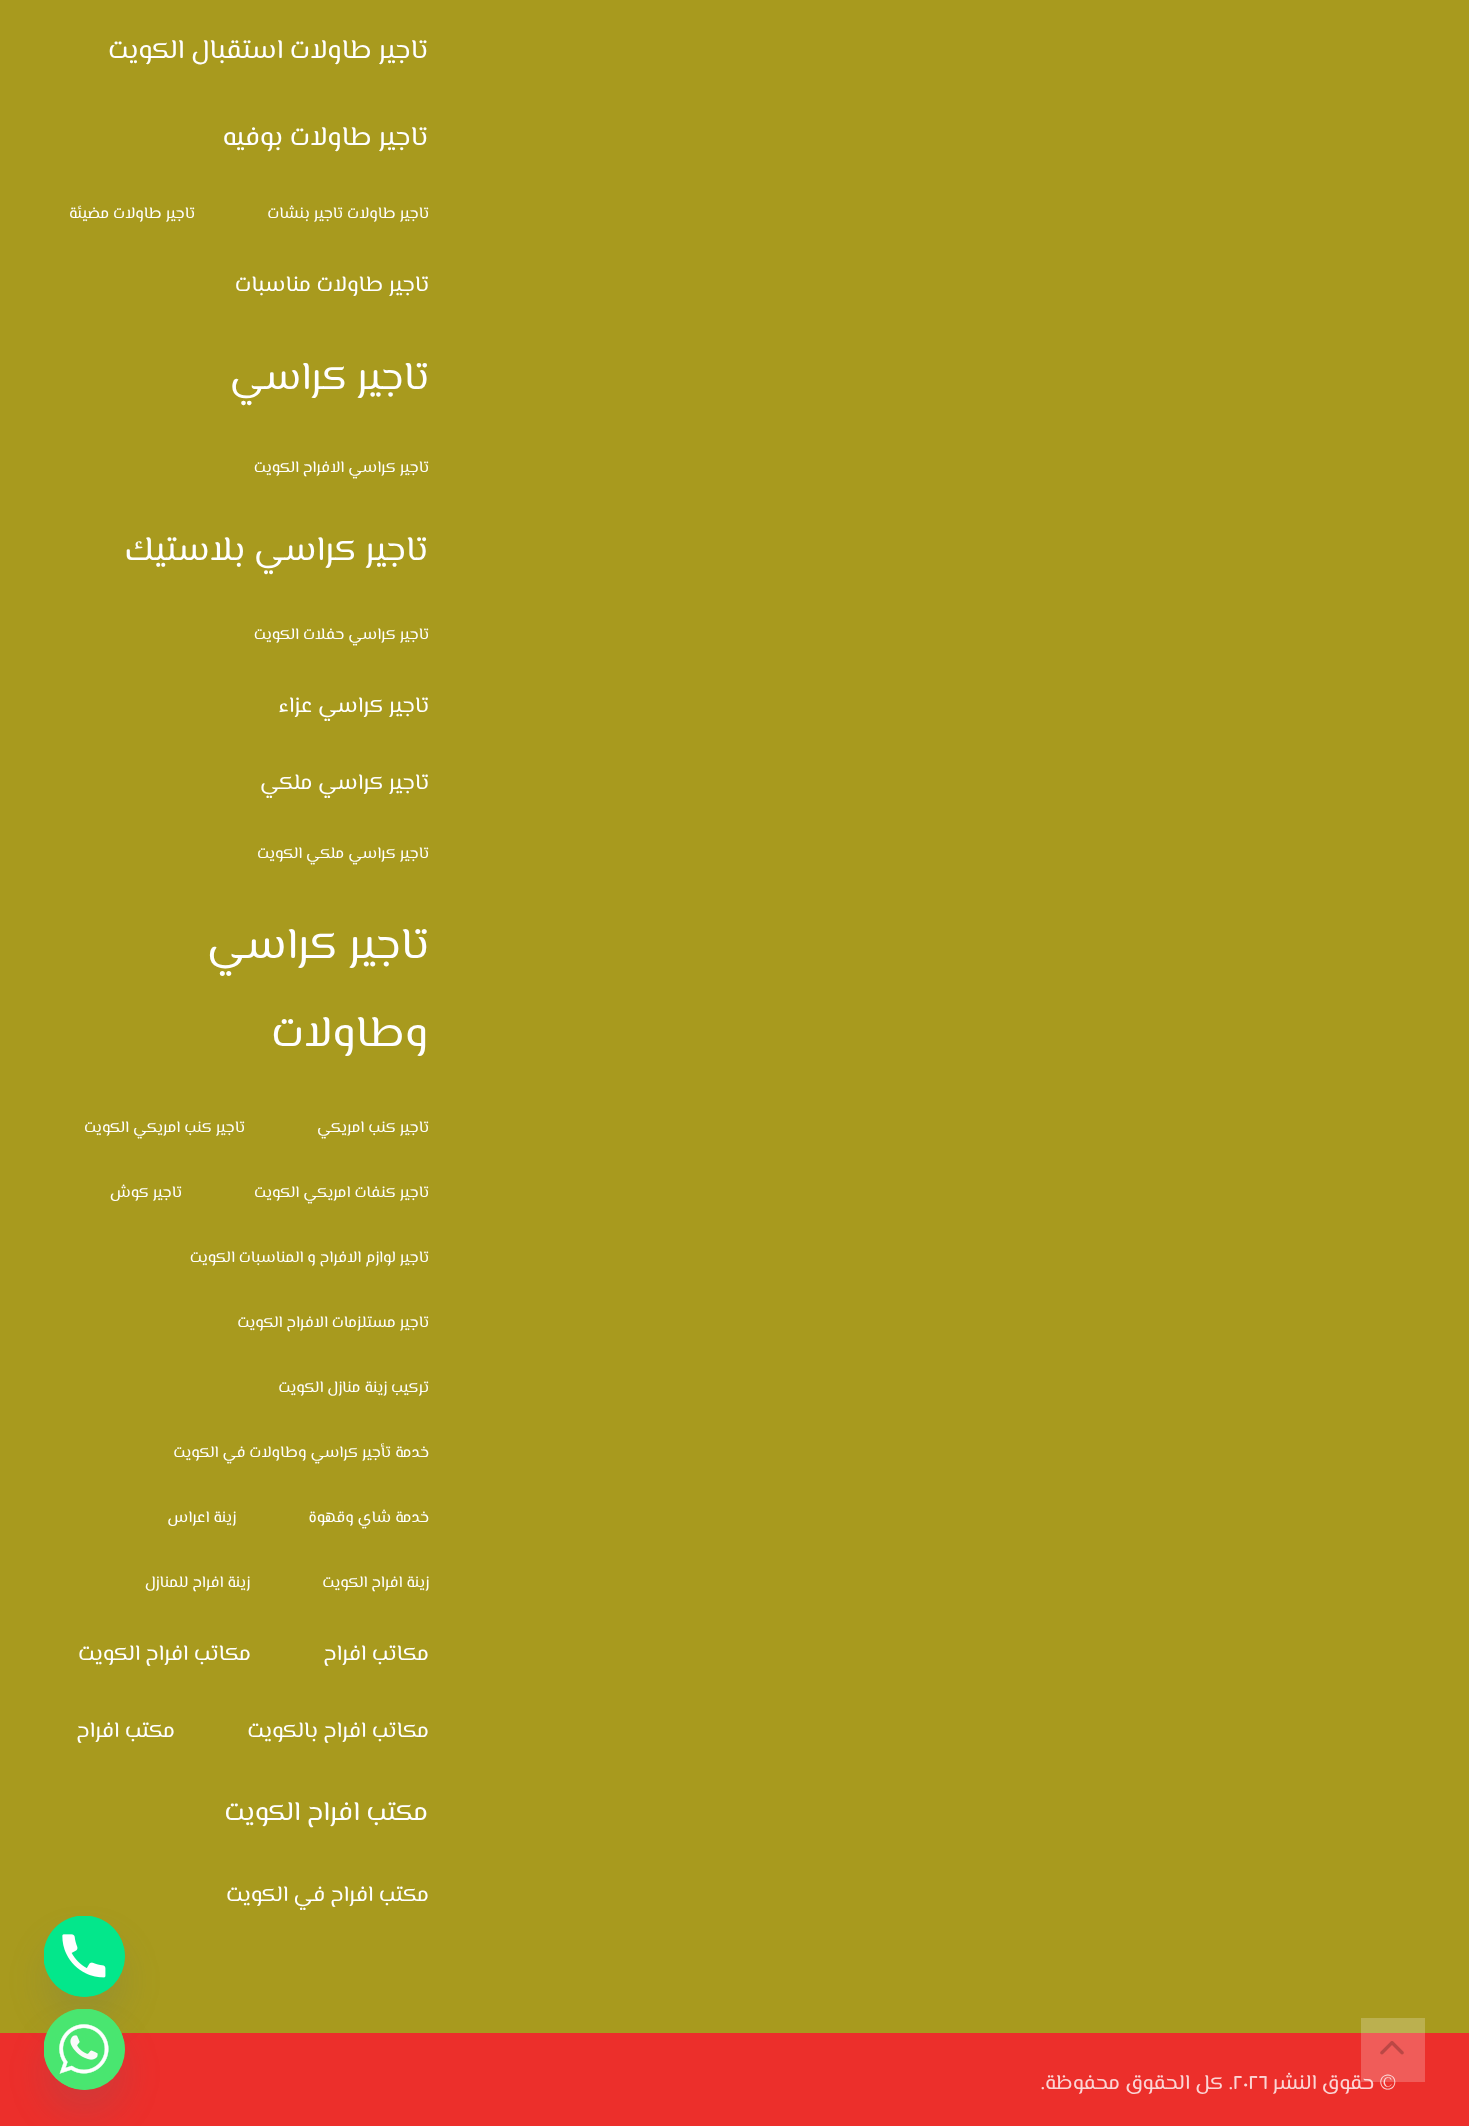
async function draw(canvas) {
  canvas.width = 1469
  canvas.height = 2126
  const ctx = canvas.getContext('2d')
  ctx.miterLimit = 4
  ctx.fontKerning = 'normal'
  async function loadImage(src) {
    const img = new Image()
    img.src = src
    await img.decode()
    return img
  }

  ctx.fillStyle = '#a89a1e'
  ctx.fillRect(0, 0, 1469, 2126)
  ctx.direction = 'rtl'
  ctx.font = '27px El Messiri'
  ctx.fillStyle = '#fff'
  ctx.fillText('تاجير طاولات استقبال الكويت', 428, 58)
  ctx.fillText('تاجير طاولات بوفيه', 428, 145)
  ctx.font = '16px El Messiri'
  ctx.fillText('تاجير طاولات تاجير بنشات', 429, 218)
  ctx.fillText('تاجير طاولات مضيئة', 195, 218)
  ctx.font = '22px El Messiri'
  ctx.fillText('تاجير طاولات مناسبات', 429, 291)
  ctx.font = '39.5px El Messiri'
  ctx.fillText('تاجير كراسي', 429, 389)
  ctx.font = '16px El Messiri'
  ctx.fillText('تاجير كراسي الافراح الكويت', 429, 472)
  ctx.font = '34.5px El Messiri'
  ctx.fillText('تاجير كراسي بلاستيك', 428, 560)
  ctx.font = '16px El Messiri'
  ctx.fillText('تاجير كراسي حفلات الكويت', 429, 639)
  ctx.font = '22px El Messiri'
  ctx.fillText('تاجير كراسي عزاء', 429, 712)
  ctx.fillText('تاجير كراسي ملكي', 429, 789)
  ctx.font = '16px El Messiri'
  ctx.fillText('تاجير كراسي ملكي الكويت', 429, 858)
  ctx.font = '44px El Messiri'
  ctx.fillText('تاجير كراسي', 429, 958)
  ctx.fillText('وطاولات', 428, 1046)
  ctx.font = '16px El Messiri'
  ctx.fillText('تاجير كنب امريكي', 429, 1132)
  ctx.fillText('تاجير كنب امريكي الكويت', 245, 1132)
  ctx.fillText('تاجير كنفات امريكي الكويت', 429, 1197)
  ctx.fillText('تاجير كوش', 182, 1197)
  ctx.fillText('تاجير لوازم الافراح و المناسبات الكويت', 429, 1262)
  ctx.fillText('تاجير مستلزمات الافراح الكويت', 429, 1327)
  ctx.fillText('تركيب زينة منازل الكويت', 429, 1392)
  ctx.fillText('خدمة تأجير كراسي وطاولات في الكويت', 429, 1457)
  ctx.fillText('خدمة شاي وقهوة', 429, 1522)
  ctx.fillText('زينة اعراس', 236, 1522)
  ctx.fillText('زينة افراح الكويت', 429, 1587)
  ctx.fillText('زينة افراح للمنازل', 250, 1587)
  ctx.font = '22px El Messiri'
  ctx.fillText('مكاتب افراح', 429, 1660)
  ctx.fillText('مكاتب افراح الكويت', 251, 1660)
  ctx.fillText('مكاتب افراح بالكويت', 429, 1737)
  ctx.fillText('مكتب افراح', 175, 1737)
  ctx.font = '27px El Messiri'
  ctx.fillText('مكتب افراح الكويت', 428, 1820)
  ctx.font = '22px El Messiri'
  ctx.fillText('مكتب افراح في الكويت', 429, 1901)
  ctx.fillStyle = '#ec2f2b'
  ctx.fillRect(0, 2033, 1469, 93)
  ctx.font = '21px El Messiri'
  ctx.fillStyle = '#fbd5d5'
  ctx.fillText('© حقوق النشر', 1396, 2089)
  ctx.direction = 'ltr'
  ctx.fillText('٢٠٢٦', 1233, 2089)
  ctx.direction = 'rtl'
  ctx.fillText('. كل الحقوق محفوظة.', 1233, 2089)
  ctx.fillStyle = '#ffffff38'
  ctx.fillRect(1361, 2018, 64, 64)
  ctx.drawImage(await loadImage('image0.png'), 1380, 2041, 24, 14)
  ctx.fillStyle = '#49687e29'
  ctx.filter = 'blur(18px)'
  ctx.beginPath()
  ctx.roundRect(44, 1940, 81, 81, 40.5)
  ctx.fill()
  ctx.filter = 'none'
  ctx.fillStyle = '#03e78b'
  ctx.beginPath()
  ctx.arc(84.5, 1956.5, 40.5, 0, 2 * Math.PI)
  ctx.fill()
  ctx.drawImage(await loadImage('image1.png'), 44, 1916, 81, 81)
  ctx.fillStyle = '#49687e29'
  ctx.filter = 'blur(18px)'
  ctx.beginPath()
  ctx.roundRect(44, 2033, 81, 81, 40.5)
  ctx.fill()
  ctx.filter = 'none'
  ctx.fillStyle = '#49e670'
  ctx.beginPath()
  ctx.arc(84.5, 2049.5, 40.5, 0, 2 * Math.PI)
  ctx.fill()
  ctx.drawImage(await loadImage('image2.png'), 44, 2009, 81, 81)
}

draw(document.querySelector('canvas'))
